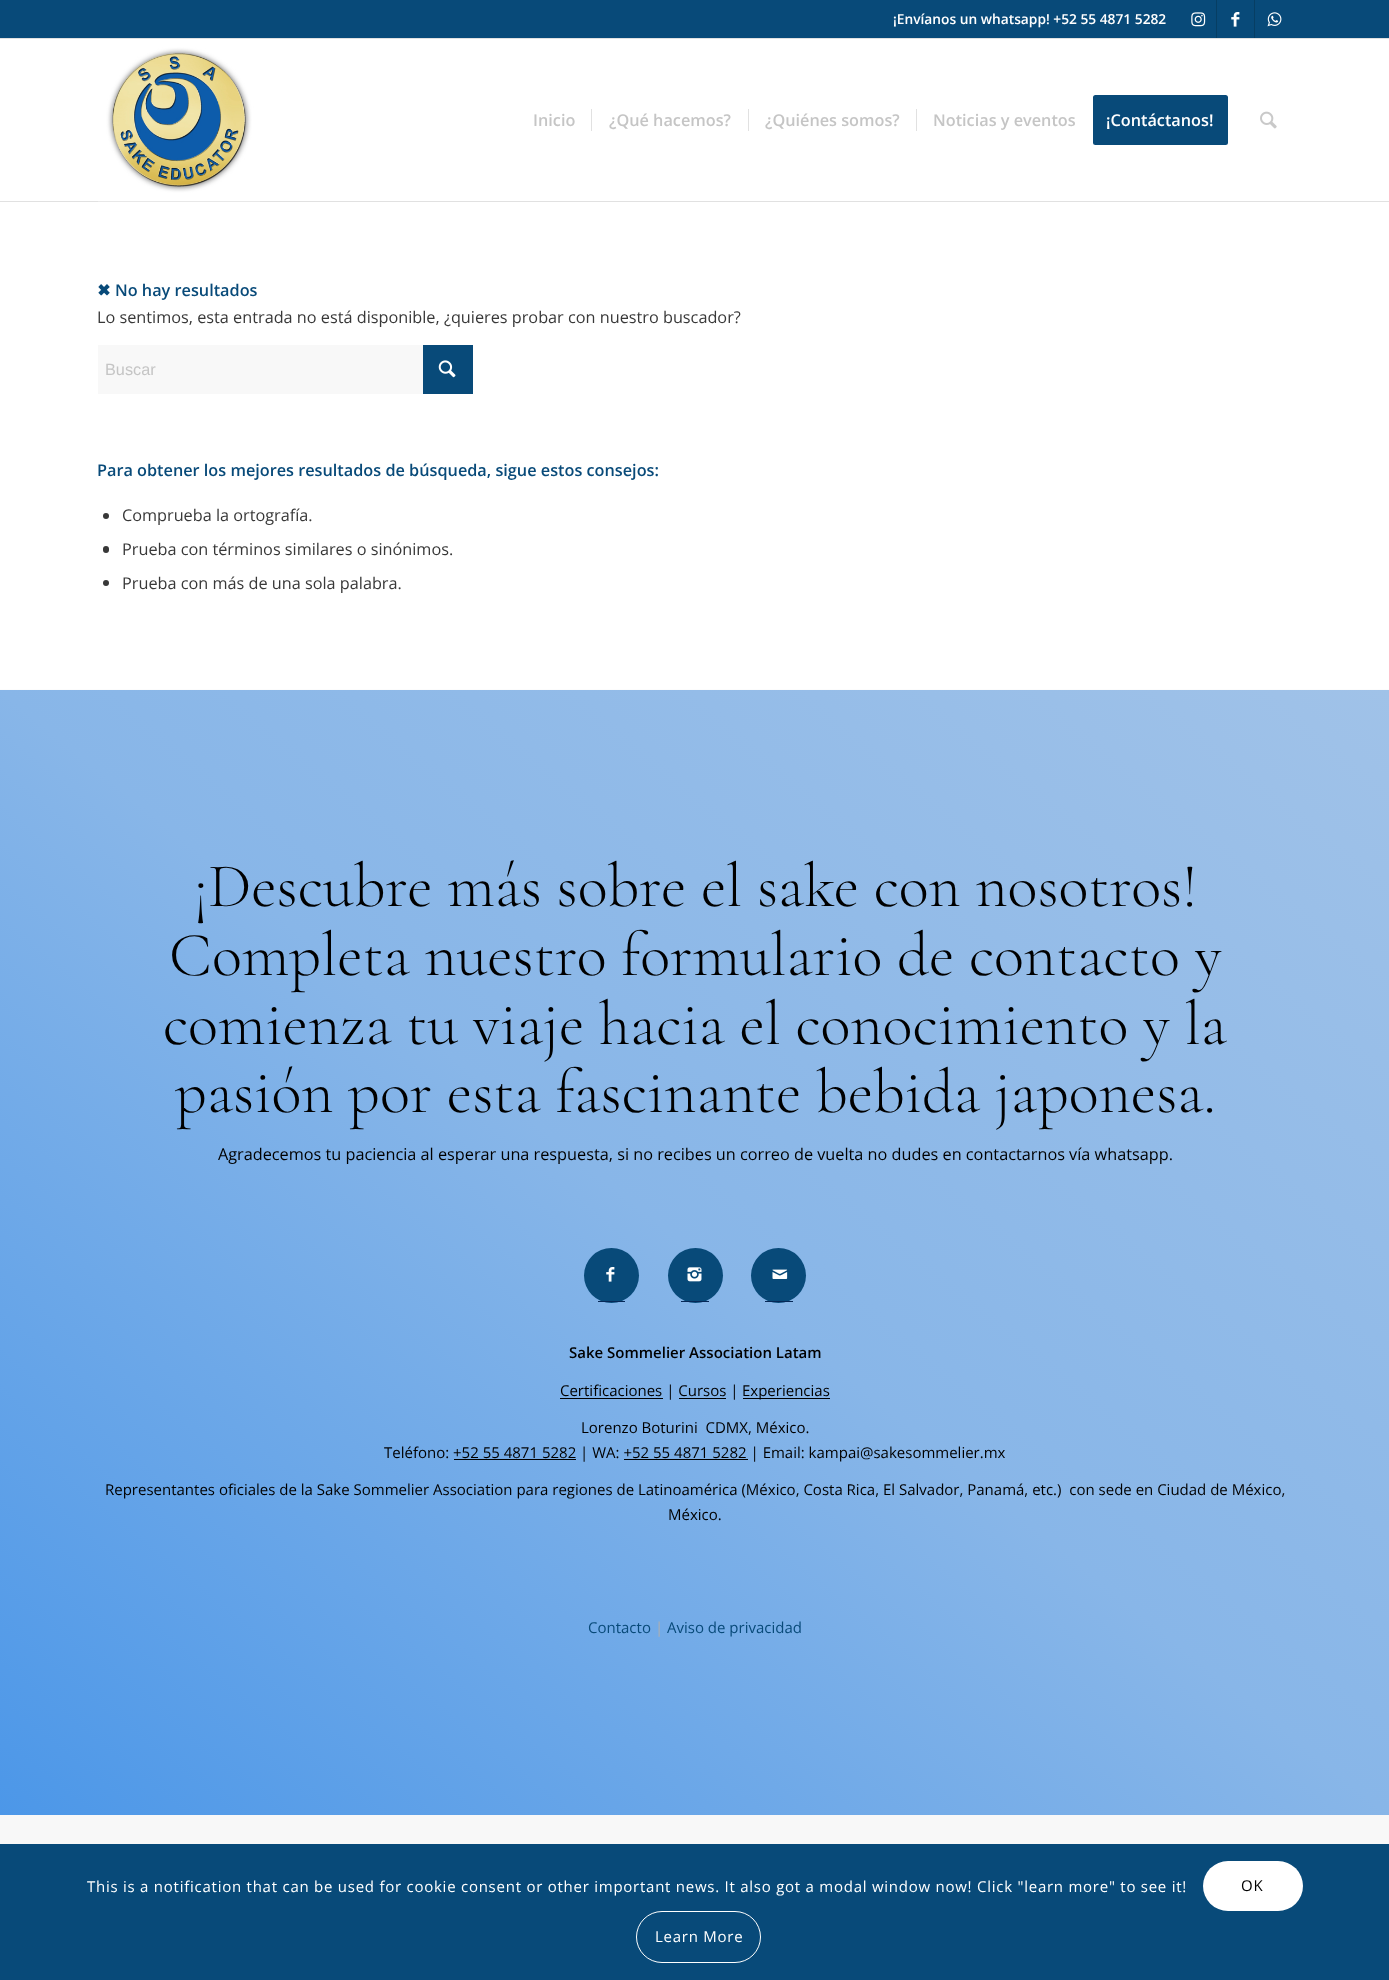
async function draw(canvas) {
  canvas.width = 1389
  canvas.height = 1980
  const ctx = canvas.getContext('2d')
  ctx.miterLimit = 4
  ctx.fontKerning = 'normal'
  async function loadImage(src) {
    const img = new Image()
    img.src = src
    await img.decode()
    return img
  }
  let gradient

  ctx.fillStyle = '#f8f8f8'
  ctx.fillRect(0, 0, 1389, 1980)
  ctx.fillStyle = '#fff'
  ctx.fillRect(0, 39, 1389, 650)
  ctx.fillStyle = '#084a79'
  ctx.fillRect(0, 0, 1389, 38)
  ctx.fillStyle = '#e1e1e1'
  ctx.fillRect(0, 38, 1389, 1)
  ctx.font = '600 13.75px Open Sans'
  ctx.fillStyle = '#fff'
  ctx.fillText('¡Envíanos un whatsapp! +52 55 4871 5282', 893, 24)
  ctx.fillStyle = '#073e63'
  ctx.fillRect(1216, 0, 1, 38)
  ctx.drawImage(await loadImage('image0.png'), 1191, 12, 15, 15)
  ctx.fillRect(1254, 0, 1, 38)
  ctx.drawImage(await loadImage('image1.png'), 1231, 12, 9, 15)
  ctx.drawImage(await loadImage('image2.png'), 1267, 12, 15, 15)
  ctx.fillStyle = '#e1e1e1'
  ctx.fillRect(0, 201, 1389, 1)
  ctx.drawImage(await loadImage('image3.png'), 98, 39, 162, 163)
  ctx.font = '600 16.25px Open Sans'
  ctx.fillStyle = '#c5c5c5'
  ctx.fillText('Inicio', 533, 126)
  ctx.fillText('¿Qué hacemos?', 609, 126)
  ctx.fillStyle = '#e1e1e1'
  ctx.fillRect(591, 109, 1, 22)
  ctx.fillStyle = '#c5c5c5'
  ctx.fillText('¿Quiénes somos?', 765, 126)
  ctx.fillStyle = '#e1e1e1'
  ctx.fillRect(748, 109, 1, 22)
  ctx.fillStyle = '#c5c5c5'
  ctx.fillText('Noticias y eventos', 933, 126)
  ctx.fillStyle = '#e1e1e1'
  ctx.fillRect(916, 109, 1, 22)
  ctx.fillStyle = '#084a79'
  ctx.beginPath()
  ctx.roundRect(1094.5, 96.5, 132, 47, 1)
  ctx.fill()
  ctx.strokeStyle = '#084a79'
  ctx.lineWidth = 3
  ctx.stroke()
  ctx.fillStyle = '#fff'
  ctx.fillText('¡Contáctanos!', 1106, 126)
  ctx.drawImage(await loadImage('image4.png'), 1260, 111, 17, 18)
  ctx.font = 'bold 16.25px DejaVu Sans'
  ctx.fillStyle = '#084a79'
  ctx.fillText('✖', 97, 296)
  ctx.font = '600 16.25px Open Sans'
  ctx.fillText('No hay resultados', 115, 296)
  ctx.font = '16.25px Open Sans'
  ctx.fillStyle = '#383838'
  ctx.fillText('Lo sentimos, esta entrada no está disponible, ¿quieres probar con nuestro buscador?', 97, 323)
  ctx.fillStyle = '#f8f8f8'
  ctx.fillRect(98, 345, 325, 49)
  ctx.font = '16.25px Liberation Sans'
  ctx.fillStyle = '#c5c5c5'
  ctx.fillText('Buscar', 105, 375)
  ctx.fillStyle = '#084a79'
  ctx.fillRect(423, 345, 50, 49)
  ctx.drawImage(await loadImage('image5.png'), 438, 360, 18, 18)
  ctx.font = '600 16.25px Open Sans'
  ctx.fillText('Para obtener los mejores resultados de búsqueda, sigue estos consejos:', 97, 476)
  ctx.fillStyle = '#383838'
  ctx.beginPath()
  ctx.arc(106, 516, 3, 0, 2 * Math.PI)
  ctx.fill()
  ctx.font = '16.25px Open Sans'
  ctx.fillText('Comprueba la ortografía.', 122, 521)
  ctx.beginPath()
  ctx.roundRect(103, 546, 6, 7, 3)
  ctx.fill()
  ctx.fillText('Prueba con términos similares o sinónimos.', 122, 555)
  ctx.beginPath()
  ctx.arc(106, 583, 3, 0, 2 * Math.PI)
  ctx.fill()
  ctx.fillText('Prueba con más de una sola palabra.', 122, 589)
  gradient = ctx.createLinearGradient(145, 1932, 1245, 573)
  gradient.addColorStop(0, '#4c97e8')
  gradient.addColorStop(0.5, '#88b6e8')
  gradient.addColorStop(1, '#a0c2e8')
  ctx.fillStyle = gradient
  ctx.fillRect(0, 690, 1389, 1125)
  ctx.fillStyle = '#fcfcfc'
  ctx.fillRect(0, 689, 1389, 1)
  ctx.font = '300 62.5px Cormorant Garamond'
  ctx.fillStyle = '#000'
  ctx.fillText('¡Descubre más sobre el sake con nosotros!', 193, 906)
  ctx.fillText('Completa nuestro formulario de contacto y', 169, 975)
  ctx.fillText('comienza tu viaje hacia el conocimiento y la', 163, 1044)
  ctx.fillText('pasión por esta fascinante bebida japonesa.', 175, 1112)
  ctx.font = '16.25px Open Sans'
  ctx.fillText('Agradecemos tu paciencia al esperar una respuesta, si no recibes un correo de vuelta no dudes en contactarnos vía whatsapp.', 218, 1160)
  ctx.fillStyle = '#084a79'
  ctx.beginPath()
  ctx.arc(611.5, 1275.5, 27.5, 0, 2 * Math.PI)
  ctx.fill()
  ctx.fillStyle = '#062857'
  ctx.fillRect(598, 1301, 27, 1)
  ctx.drawImage(await loadImage('image1.png'), 606, 1267, 9, 15)
  ctx.fillStyle = '#084a79'
  ctx.beginPath()
  ctx.arc(695.5, 1275.5, 27.5, 0, 2 * Math.PI)
  ctx.fill()
  ctx.fillStyle = '#062857'
  ctx.fillRect(681, 1301, 28, 1)
  ctx.drawImage(await loadImage('image6.png'), 687, 1267, 15, 15)
  ctx.fillStyle = '#084a79'
  ctx.beginPath()
  ctx.arc(778.5, 1275.5, 27.5, 0, 2 * Math.PI)
  ctx.fill()
  ctx.fillStyle = '#062857'
  ctx.fillRect(765, 1301, 28, 1)
  ctx.drawImage(await loadImage('image7.png'), 772, 1269, 16, 10)
  ctx.font = '600 15px Open Sans'
  ctx.fillStyle = '#000'
  ctx.fillText('Sake Sommelier Association Latam', 569, 1358)
  ctx.fillRect(560, 1398, 103, 1)
  ctx.font = '15px Open Sans'
  ctx.fillText('Certificaciones | Cursos |', 560, 1396)
  ctx.fillRect(743, 1398, 87, 1)
  ctx.fillText('Experiencias', 742, 1396)
  ctx.fillRect(679, 1398, 47, 1)
  ctx.fillText('Lorenzo Boturini  CDMX, México.', 581, 1433)
  ctx.fillText('Teléfono: +52 55 4871 5282 | WA: +52 55 4871 5282 | Email: kampai@sakesommelier.mx', 384, 1458)
  ctx.fillRect(454, 1459, 122, 1)
  ctx.fillRect(624, 1459, 124, 1)
  ctx.fillText('Representantes oficiales de la Sake Sommelier Association para regiones de Latinoamérica (México, Costa Rica, El Salvador, Panamá, etc.)  con sede en Ciudad de México,', 105, 1495)
  ctx.fillText('México.', 668, 1520)
  ctx.fillStyle = '#084a79'
  ctx.fillText('Contacto', 588, 1633)
  ctx.fillStyle = '#b0b0b0'
  ctx.fillText('|', 655, 1633)
  ctx.fillStyle = '#084a79'
  ctx.fillText('Aviso de privacidad', 667, 1633)
  ctx.fillRect(0, 1844, 1389, 136)
  ctx.letterSpacing = '0.75px'
  ctx.fillStyle = '#fff'
  ctx.fillText('This is a notification that can be used for cookie consent or other important news. It also got a modal window now! Click "learn more" to see it!', 87, 1892)
  ctx.beginPath()
  ctx.roundRect(1203, 1861, 100, 50, 25)
  ctx.fill()
  ctx.fillStyle = '#000'
  ctx.fillText('OK', 1241, 1891)
  ctx.beginPath()
  ctx.roundRect(636.5, 1911.5, 124, 51, 25.5)
  ctx.strokeStyle = '#fff'
  ctx.lineWidth = 1
  ctx.stroke()
  ctx.fillStyle = '#fff'
  ctx.fillText('Learn More', 655, 1942)
}

draw(document.querySelector('canvas'))
